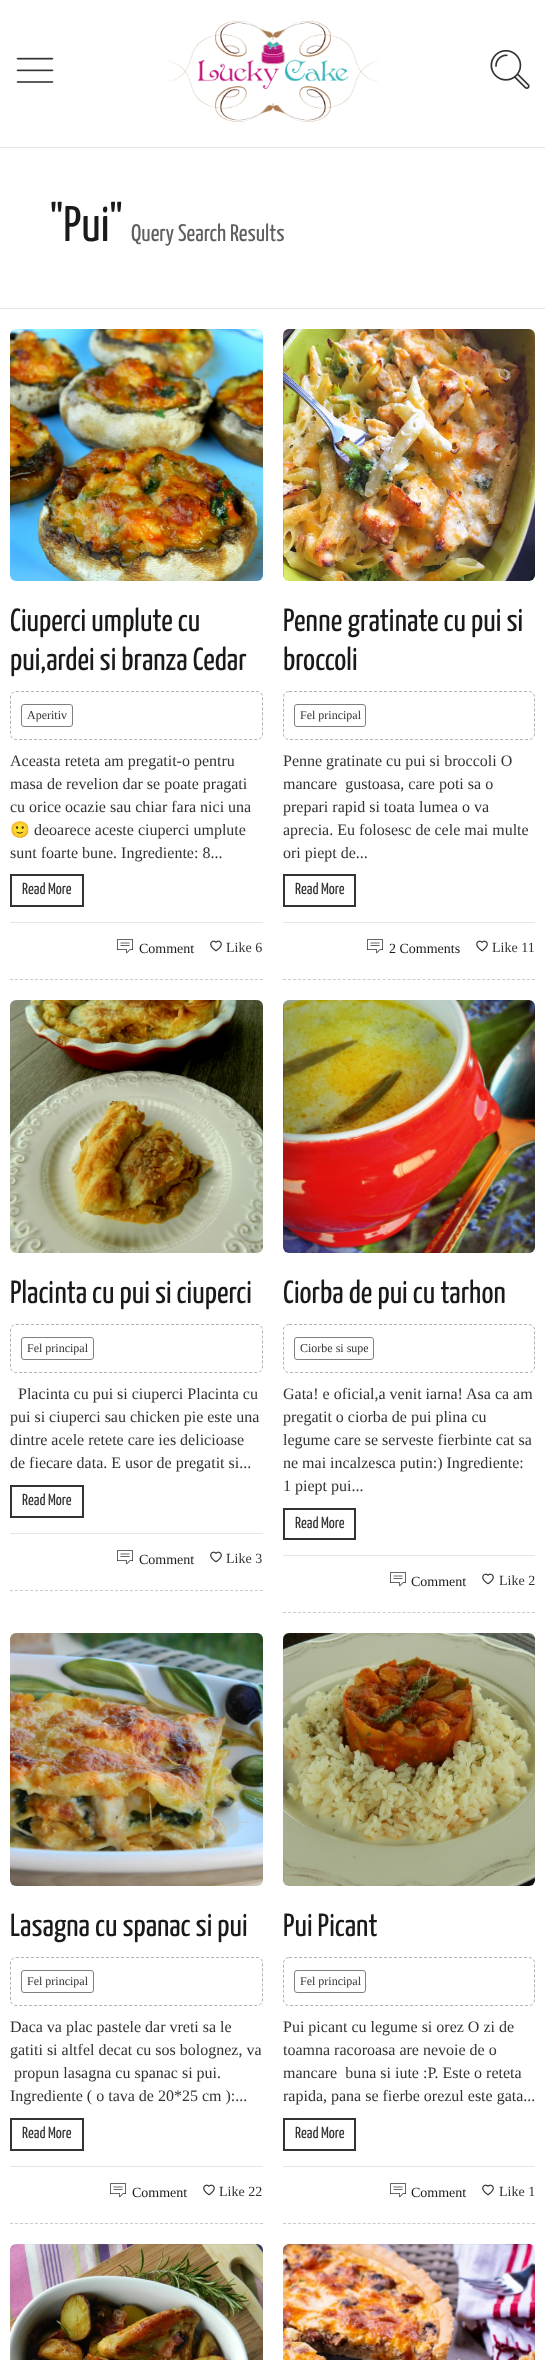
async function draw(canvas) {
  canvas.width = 545
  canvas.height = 2360
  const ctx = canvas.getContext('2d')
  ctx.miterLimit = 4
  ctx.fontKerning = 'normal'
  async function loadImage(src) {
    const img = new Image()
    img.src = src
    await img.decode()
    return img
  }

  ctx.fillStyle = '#fff'
  ctx.fillRect(0, 0, 545, 2360)
  ctx.drawImage(await loadImage('image0.png'), 16, 57, 38, 26)
  ctx.drawImage(await loadImage('image1.png'), 168, 21, 210, 101)
  ctx.drawImage(await loadImage('image2.png'), 490, 49, 40, 40)
  ctx.fillStyle = '#e6e6e6'
  ctx.fillRect(0, 147, 545, 1)
  ctx.fillRect(0, 308, 545, 1)
  ctx.font = '50px Yanone Kaffeesatz'
  ctx.fillStyle = '#1a1a1a'
  ctx.fillText('"Pui"', 50, 241)
  ctx.font = '24px Yanone Kaffeesatz'
  ctx.fillStyle = '#5f5f5f'
  ctx.fillText('Query Search Results', 131, 241)
  ctx.beginPath()
  ctx.moveTo(10, 979.5)
  ctx.lineTo(263, 979.5)
  ctx.strokeStyle = '#ccc'
  ctx.setLineDash([3, 2])
  ctx.stroke()
  ctx.drawImage(await loadImage('image3.png'), 10, 329, 253, 252)
  ctx.font = '32px Yanone Kaffeesatz'
  ctx.fillStyle = '#1a1a1a'
  ctx.fillText('Ciuperci umplute cu', 10, 631)
  ctx.fillText('pui,ardei si branza Cedar', 10, 670)
  ctx.beginPath()
  ctx.moveTo(16, 691.5)
  ctx.lineTo(257, 691.5)
  ctx.bezierCurveTo(260, 691.5, 262.5, 694, 262.5, 697)
  ctx.lineTo(262.5, 734)
  ctx.bezierCurveTo(262.5, 737, 260, 739.5, 257, 739.5)
  ctx.lineTo(16, 739.5)
  ctx.bezierCurveTo(13, 739.5, 10.5, 737, 10.5, 734)
  ctx.lineTo(10.5, 697)
  ctx.bezierCurveTo(10.5, 694, 13, 691.5, 16, 691.5)
  ctx.closePath()
  ctx.strokeStyle = '#b3b3b3'
  ctx.stroke()
  ctx.beginPath()
  ctx.roundRect(21.5, 704.5, 51, 22, 2.5)
  ctx.strokeStyle = '#808080'
  ctx.setLineDash([])
  ctx.stroke()
  ctx.font = '12px Liberation Serif'
  ctx.fillStyle = '#333'
  ctx.fillText('Aperitiv', 27, 719)
  ctx.font = '16px Liberation Serif'
  ctx.fillText('Aceasta reteta am pregatit-o pentru', 10, 766)
  ctx.fillText('masa de revelion dar se poate pragati', 10, 789)
  ctx.fillText('cu orice ocazie sau chiar fara nici una', 10, 812)
  ctx.font = '16px Noto Color Emoji'
  ctx.fillText('🙂', 10, 835)
  ctx.font = '16px Liberation Serif'
  ctx.fillText('deoarece aceste ciuperci umplute', 34, 835)
  ctx.fillText('sunt foarte bune. Ingrediente: 8...', 10, 858)
  ctx.strokeStyle = '#333'
  ctx.lineWidth = 2
  ctx.strokeRect(11, 875, 72, 31)
  ctx.font = '16px Yanone Kaffeesatz'
  ctx.fillText('Read More', 22, 894)
  ctx.fillStyle = '#e6e6e6'
  ctx.fillRect(10, 922, 253, 1)
  ctx.drawImage(await loadImage('image4.png'), 117, 939, 16, 15)
  ctx.font = '14px Liberation Serif'
  ctx.fillStyle = '#1a1a1a'
  ctx.fillText('Comment', 139, 953)
  ctx.drawImage(await loadImage('image5.png'), 210, 940, 12, 12)
  ctx.fillStyle = '#333'
  ctx.fillText('Like 6', 226, 952)
  ctx.beginPath()
  ctx.moveTo(283, 979.5)
  ctx.lineTo(535, 979.5)
  ctx.strokeStyle = '#ccc'
  ctx.lineWidth = 1
  ctx.setLineDash([3, 1.98])
  ctx.stroke()
  ctx.drawImage(await loadImage('image6.png'), 283, 329, 252, 252)
  ctx.font = '32px Yanone Kaffeesatz'
  ctx.fillStyle = '#1a1a1a'
  ctx.fillText('Penne gratinate cu pui si', 283, 631)
  ctx.fillText('broccoli', 283, 670)
  ctx.beginPath()
  ctx.moveTo(289, 691.5)
  ctx.lineTo(529, 691.5)
  ctx.bezierCurveTo(532, 691.5, 534.5, 694, 534.5, 697)
  ctx.lineTo(534.5, 734)
  ctx.bezierCurveTo(534.5, 737, 532, 739.5, 529, 739.5)
  ctx.lineTo(289, 739.5)
  ctx.bezierCurveTo(286, 739.5, 283.5, 737, 283.5, 734)
  ctx.lineTo(283.5, 697)
  ctx.bezierCurveTo(283.5, 694, 286, 691.5, 289, 691.5)
  ctx.closePath()
  ctx.strokeStyle = '#b3b3b3'
  ctx.setLineDash([3, 2])
  ctx.stroke()
  ctx.beginPath()
  ctx.roundRect(294.5, 704.5, 71, 22, 2.5)
  ctx.strokeStyle = '#808080'
  ctx.setLineDash([])
  ctx.stroke()
  ctx.font = '12px Liberation Serif'
  ctx.fillStyle = '#333'
  ctx.fillText('Fel principal', 300, 719)
  ctx.font = '16px Liberation Serif'
  ctx.fillText('Penne gratinate cu pui si broccoli O', 283, 766)
  ctx.fillText('mancare  gustoasa, care poti sa o', 283, 789)
  ctx.fillText('prepari rapid si toata lumea o va', 283, 812)
  ctx.fillText('aprecia. Eu folosesc de cele mai multe', 283, 835)
  ctx.fillText('ori piept de...', 283, 858)
  ctx.strokeStyle = '#333'
  ctx.lineWidth = 2
  ctx.strokeRect(284, 875, 71, 31)
  ctx.font = '16px Yanone Kaffeesatz'
  ctx.fillText('Read More', 295, 894)
  ctx.fillStyle = '#e6e6e6'
  ctx.fillRect(283, 922, 252, 1)
  ctx.drawImage(await loadImage('image4.png'), 367, 939, 16, 15)
  ctx.font = '14px Liberation Serif'
  ctx.fillStyle = '#1a1a1a'
  ctx.fillText('2 Comments', 389, 953)
  ctx.drawImage(await loadImage('image5.png'), 476, 940, 12, 12)
  ctx.fillStyle = '#333'
  ctx.fillText('Like 11', 492, 952)
  ctx.beginPath()
  ctx.moveTo(10, 1590.5)
  ctx.lineTo(263, 1590.5)
  ctx.strokeStyle = '#ccc'
  ctx.lineWidth = 1
  ctx.setLineDash([3, 2])
  ctx.stroke()
  ctx.drawImage(await loadImage('image7.png'), 10, 1000, 253, 253)
  ctx.font = '32px Yanone Kaffeesatz'
  ctx.fillStyle = '#1a1a1a'
  ctx.fillText('Placinta cu pui si ciuperci', 10, 1303)
  ctx.beginPath()
  ctx.moveTo(16, 1324.5)
  ctx.lineTo(257, 1324.5)
  ctx.bezierCurveTo(260, 1324.5, 262.5, 1327, 262.5, 1330)
  ctx.lineTo(262.5, 1367)
  ctx.bezierCurveTo(262.5, 1370, 260, 1372.5, 257, 1372.5)
  ctx.lineTo(16, 1372.5)
  ctx.bezierCurveTo(13, 1372.5, 10.5, 1370, 10.5, 1367)
  ctx.lineTo(10.5, 1330)
  ctx.bezierCurveTo(10.5, 1327, 13, 1324.5, 16, 1324.5)
  ctx.closePath()
  ctx.strokeStyle = '#b3b3b3'
  ctx.stroke()
  ctx.beginPath()
  ctx.roundRect(21.5, 1337.5, 72, 22, 2.5)
  ctx.strokeStyle = '#808080'
  ctx.setLineDash([])
  ctx.stroke()
  ctx.font = '12px Liberation Serif'
  ctx.fillStyle = '#333'
  ctx.fillText('Fel principal', 27, 1352)
  ctx.font = '16px Liberation Serif'
  ctx.fillText('Placinta cu pui si ciuperci Placinta cu', 18, 1399)
  ctx.fillText('pui si ciuperci sau chicken pie este una', 10, 1422)
  ctx.fillText('dintre acele retete care ies delicioase', 10, 1445)
  ctx.fillText('de fiecare data. E usor de pregatit si...', 10, 1468)
  ctx.strokeStyle = '#333'
  ctx.lineWidth = 2
  ctx.strokeRect(11, 1486, 72, 31)
  ctx.font = '16px Yanone Kaffeesatz'
  ctx.fillText('Read More', 22, 1505)
  ctx.fillStyle = '#e6e6e6'
  ctx.fillRect(10, 1533, 253, 1)
  ctx.drawImage(await loadImage('image4.png'), 117, 1550, 16, 15)
  ctx.font = '14px Liberation Serif'
  ctx.fillStyle = '#1a1a1a'
  ctx.fillText('Comment', 139, 1564)
  ctx.drawImage(await loadImage('image5.png'), 210, 1551, 12, 12)
  ctx.fillStyle = '#333'
  ctx.fillText('Like 3', 226, 1563)
  ctx.beginPath()
  ctx.moveTo(283, 1612.5)
  ctx.lineTo(535, 1612.5)
  ctx.strokeStyle = '#ccc'
  ctx.lineWidth = 1
  ctx.setLineDash([3, 1.98])
  ctx.stroke()
  ctx.drawImage(await loadImage('image8.png'), 283, 1000, 252, 253)
  ctx.font = '32px Yanone Kaffeesatz'
  ctx.fillStyle = '#1a1a1a'
  ctx.fillText('Ciorba de pui cu tarhon', 283, 1303)
  ctx.beginPath()
  ctx.moveTo(289, 1324.5)
  ctx.lineTo(529, 1324.5)
  ctx.bezierCurveTo(532, 1324.5, 534.5, 1327, 534.5, 1330)
  ctx.lineTo(534.5, 1367)
  ctx.bezierCurveTo(534.5, 1370, 532, 1372.5, 529, 1372.5)
  ctx.lineTo(289, 1372.5)
  ctx.bezierCurveTo(286, 1372.5, 283.5, 1370, 283.5, 1367)
  ctx.lineTo(283.5, 1330)
  ctx.bezierCurveTo(283.5, 1327, 286, 1324.5, 289, 1324.5)
  ctx.closePath()
  ctx.strokeStyle = '#b3b3b3'
  ctx.setLineDash([3, 2])
  ctx.stroke()
  ctx.beginPath()
  ctx.roundRect(294.5, 1337.5, 79, 22, 2.5)
  ctx.strokeStyle = '#808080'
  ctx.setLineDash([])
  ctx.stroke()
  ctx.font = '12px Liberation Serif'
  ctx.fillStyle = '#333'
  ctx.fillText('Ciorbe si supe', 300, 1352)
  ctx.font = '16px Liberation Serif'
  ctx.fillText('Gata! e oficial,a venit iarna! Asa ca am', 283, 1399)
  ctx.fillText('pregatit o ciorba de pui plina cu', 283, 1422)
  ctx.fillText('legume care se serveste fierbinte cat sa', 283, 1445)
  ctx.fillText('ne mai incalzesca putin:) Ingrediente:', 283, 1468)
  ctx.fillText('1 piept pui...', 283, 1491)
  ctx.strokeStyle = '#333'
  ctx.lineWidth = 2
  ctx.strokeRect(284, 1509, 71, 30)
  ctx.font = '16px Yanone Kaffeesatz'
  ctx.fillText('Read More', 295, 1528)
  ctx.fillStyle = '#e6e6e6'
  ctx.fillRect(283, 1555, 252, 1)
  ctx.drawImage(await loadImage('image4.png'), 390, 1572, 16, 15)
  ctx.font = '14px Liberation Serif'
  ctx.fillStyle = '#1a1a1a'
  ctx.fillText('Comment', 411, 1586)
  ctx.drawImage(await loadImage('image5.png'), 482, 1573, 12, 12)
  ctx.fillStyle = '#333'
  ctx.fillText('Like 2', 499, 1585)
  ctx.beginPath()
  ctx.moveTo(10, 2223.5)
  ctx.lineTo(263, 2223.5)
  ctx.strokeStyle = '#ccc'
  ctx.lineWidth = 1
  ctx.setLineDash([3, 2])
  ctx.stroke()
  ctx.drawImage(await loadImage('image9.png'), 10, 1633, 253, 253)
  ctx.font = '32px Yanone Kaffeesatz'
  ctx.fillStyle = '#1a1a1a'
  ctx.fillText('Lasagna cu spanac si pui', 10, 1936)
  ctx.beginPath()
  ctx.moveTo(16, 1957.5)
  ctx.lineTo(257, 1957.5)
  ctx.bezierCurveTo(260, 1957.5, 262.5, 1960, 262.5, 1963)
  ctx.lineTo(262.5, 2000)
  ctx.bezierCurveTo(262.5, 2003, 260, 2005.5, 257, 2005.5)
  ctx.lineTo(16, 2005.5)
  ctx.bezierCurveTo(13, 2005.5, 10.5, 2003, 10.5, 2000)
  ctx.lineTo(10.5, 1963)
  ctx.bezierCurveTo(10.5, 1960, 13, 1957.5, 16, 1957.5)
  ctx.closePath()
  ctx.strokeStyle = '#b3b3b3'
  ctx.stroke()
  ctx.beginPath()
  ctx.roundRect(21.5, 1970.5, 72, 22, 2.5)
  ctx.strokeStyle = '#808080'
  ctx.setLineDash([])
  ctx.stroke()
  ctx.font = '12px Liberation Serif'
  ctx.fillStyle = '#333'
  ctx.fillText('Fel principal', 27, 1985)
  ctx.font = '16px Liberation Serif'
  ctx.fillText('Daca va plac pastele dar vreti sa le', 10, 2032)
  ctx.fillText('gatiti si altfel decat cu sos bolognez, va', 10, 2055)
  ctx.fillText('propun lasagna cu spanac si pui.', 14, 2078)
  ctx.fillText('Ingrediente ( o tava de 20*25 cm ):...', 10, 2101)
  ctx.strokeStyle = '#333'
  ctx.lineWidth = 2
  ctx.strokeRect(11, 2119, 72, 31)
  ctx.font = '16px Yanone Kaffeesatz'
  ctx.fillText('Read More', 22, 2138)
  ctx.fillStyle = '#e6e6e6'
  ctx.fillRect(10, 2166, 253, 1)
  ctx.drawImage(await loadImage('image4.png'), 110, 2183, 16, 15)
  ctx.font = '14px Liberation Serif'
  ctx.fillStyle = '#1a1a1a'
  ctx.fillText('Comment', 132, 2197)
  ctx.drawImage(await loadImage('image5.png'), 203, 2184, 12, 12)
  ctx.fillStyle = '#333'
  ctx.fillText('Like 22', 219, 2196)
  ctx.beginPath()
  ctx.moveTo(283, 2223.5)
  ctx.lineTo(535, 2223.5)
  ctx.strokeStyle = '#ccc'
  ctx.lineWidth = 1
  ctx.setLineDash([3, 1.98])
  ctx.stroke()
  ctx.drawImage(await loadImage('image10.png'), 283, 1633, 252, 253)
  ctx.font = '32px Yanone Kaffeesatz'
  ctx.fillStyle = '#1a1a1a'
  ctx.fillText('Pui Picant', 283, 1936)
  ctx.beginPath()
  ctx.moveTo(289, 1957.5)
  ctx.lineTo(529, 1957.5)
  ctx.bezierCurveTo(532, 1957.5, 534.5, 1960, 534.5, 1963)
  ctx.lineTo(534.5, 2000)
  ctx.bezierCurveTo(534.5, 2003, 532, 2005.5, 529, 2005.5)
  ctx.lineTo(289, 2005.5)
  ctx.bezierCurveTo(286, 2005.5, 283.5, 2003, 283.5, 2000)
  ctx.lineTo(283.5, 1963)
  ctx.bezierCurveTo(283.5, 1960, 286, 1957.5, 289, 1957.5)
  ctx.closePath()
  ctx.strokeStyle = '#b3b3b3'
  ctx.setLineDash([3, 2])
  ctx.stroke()
  ctx.beginPath()
  ctx.roundRect(294.5, 1970.5, 71, 22, 2.5)
  ctx.strokeStyle = '#808080'
  ctx.setLineDash([])
  ctx.stroke()
  ctx.font = '12px Liberation Serif'
  ctx.fillStyle = '#333'
  ctx.fillText('Fel principal', 300, 1985)
  ctx.font = '16px Liberation Serif'
  ctx.fillText('Pui picant cu legume si orez O zi de', 283, 2032)
  ctx.fillText('toamna racoroasa are nevoie de o', 283, 2055)
  ctx.fillText('mancare  buna si iute :P. Este o reteta', 283, 2078)
  ctx.fillText('rapida, pana se fierbe orezul este gata...', 283, 2101)
  ctx.strokeStyle = '#333'
  ctx.lineWidth = 2
  ctx.strokeRect(284, 2119, 71, 31)
  ctx.font = '16px Yanone Kaffeesatz'
  ctx.fillText('Read More', 295, 2138)
  ctx.fillStyle = '#e6e6e6'
  ctx.fillRect(283, 2166, 252, 1)
  ctx.drawImage(await loadImage('image4.png'), 390, 2183, 16, 15)
  ctx.font = '14px Liberation Serif'
  ctx.fillStyle = '#1a1a1a'
  ctx.fillText('Comment', 411, 2197)
  ctx.drawImage(await loadImage('image5.png'), 482, 2184, 12, 12)
  ctx.fillStyle = '#333'
  ctx.fillText('Like 1', 499, 2196)
  ctx.drawImage(await loadImage('image11.png'), 10, 2244, 253, 116)
  ctx.drawImage(await loadImage('image12.png'), 283, 2244, 252, 116)
}

draw(document.querySelector('canvas'))
